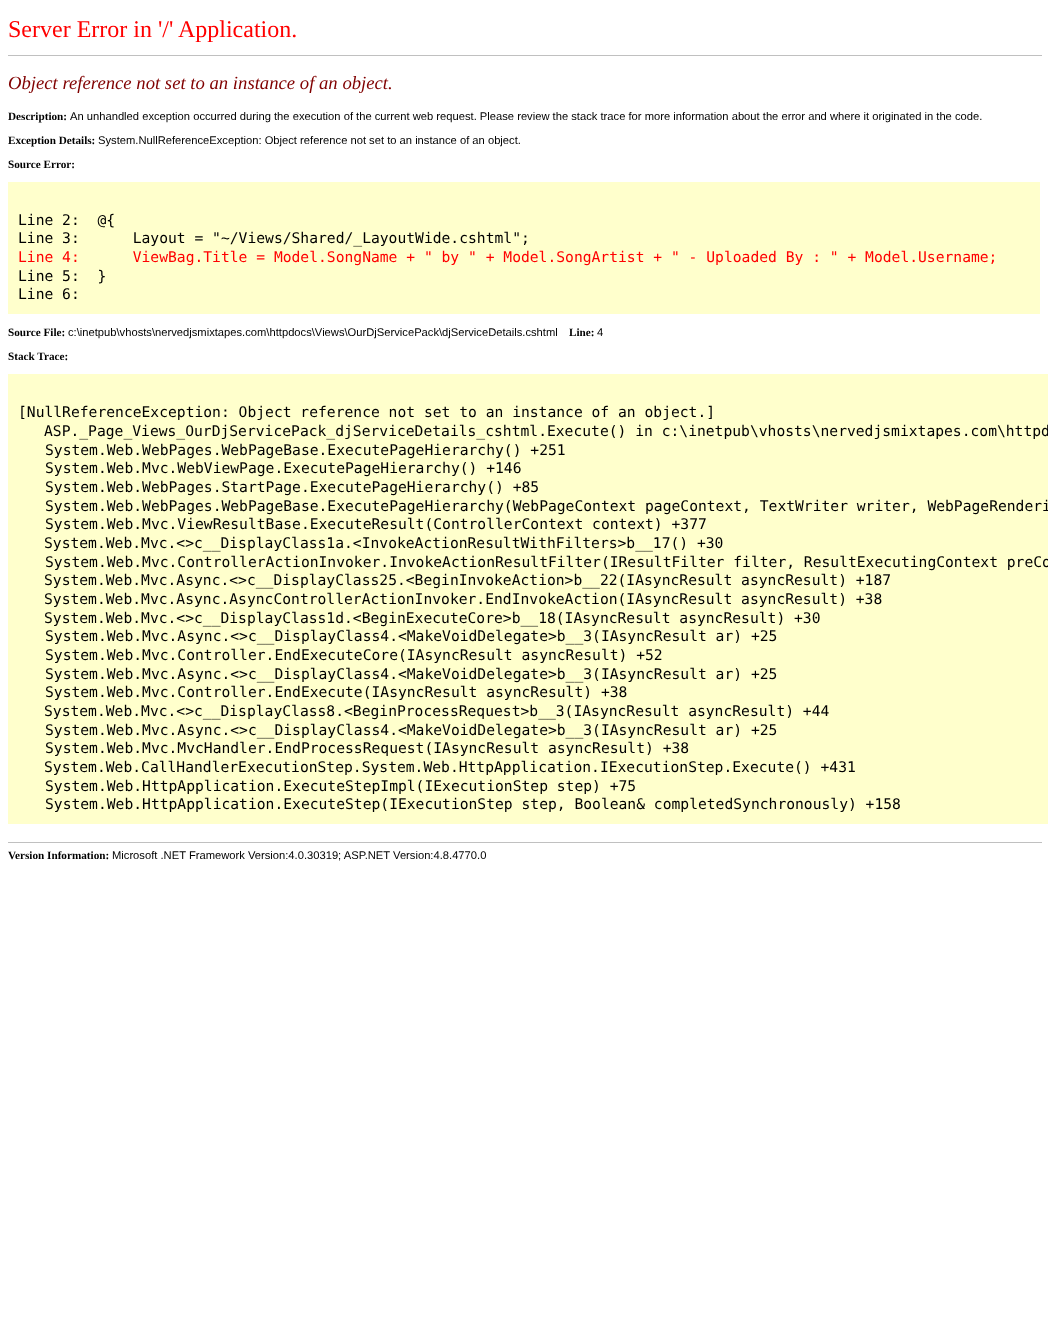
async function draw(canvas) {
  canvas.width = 1048
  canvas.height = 1332
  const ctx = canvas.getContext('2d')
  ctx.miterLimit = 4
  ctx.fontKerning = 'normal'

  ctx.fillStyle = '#fff'
  ctx.fillRect(0, 0, 1048, 1332)
  ctx.font = '24px Liberation Serif'
  ctx.fillStyle = '#f00'
  ctx.fillText('Server Error in \'/\' Application.', 8, 37)
  ctx.fillStyle = '#c0c0c0'
  ctx.fillRect(8, 55, 1034, 1)
  ctx.font = 'italic 18.7px Liberation Serif'
  ctx.fillStyle = '#800000'
  ctx.fillText('Object reference not set to an instance of an object.', 8, 89)
  ctx.font = 'bold 11.2px Liberation Serif'
  ctx.fillStyle = '#000'
  ctx.fillText('Description:', 8, 120)
  ctx.font = '11.2px Liberation Sans'
  ctx.fillText('An unhandled exception occurred during the execution of the current web request. Please review the stack trace for more information about the error and where it originated in the code.', 70, 120)
  ctx.font = 'bold 11.2px Liberation Serif'
  ctx.fillText('Exception Details:', 8, 144)
  ctx.font = '11.2px Liberation Sans'
  ctx.fillText('System.NullReferenceException: Object reference not set to an instance of an object.', 98, 144)
  ctx.font = 'bold 11.2px Liberation Serif'
  ctx.fillText('Source Error:', 8, 168)
  ctx.fillStyle = '#ffc'
  ctx.fillRect(8, 182, 1032, 132)
  ctx.font = '14.67px DejaVu Sans Mono'
  ctx.fillStyle = '#000'
  ctx.fillText('Line 2:  @{', 18, 225)
  ctx.fillText('Line 3:      Layout = "~/Views/Shared/_LayoutWide.cshtml";', 18, 243)
  ctx.fillStyle = '#f00'
  ctx.fillText('Line 4:      ViewBag.Title = Model.SongName + " by " + Model.SongArtist + " - Uploaded By : " + Model.Username;', 18, 262)
  ctx.fillStyle = '#000'
  ctx.fillText('Line 5:  }', 18, 281)
  ctx.fillText('Line 6:', 18, 299)
  ctx.font = 'bold 11.2px Liberation Serif'
  ctx.fillText('Source File:', 8, 336)
  ctx.font = '11.2px Liberation Sans'
  ctx.fillText('c:\\inetpub\\vhosts\\nervedjsmixtapes.com\\httpdocs\\Views\\OurDjServicePack\\djServiceDetails.cshtml', 68, 336)
  ctx.font = 'bold 11.2px Liberation Serif'
  ctx.fillText('Line:', 569, 336)
  ctx.font = '11.2px Liberation Sans'
  ctx.fillText('4', 597, 336)
  ctx.font = 'bold 11.2px Liberation Serif'
  ctx.fillText('Stack Trace:', 8, 360)
  ctx.fillStyle = '#ffc'
  ctx.fillRect(8, 374, 1040, 450)
  ctx.font = '14.67px DejaVu Sans Mono'
  ctx.fillStyle = '#000'
  ctx.fillText('[NullReferenceException: Object reference not set to an instance of an object.]', 18, 417)
  ctx.fillText('ASP._Page_Views_OurDjServicePack_djServiceDetails_cshtml.Execute() in c:\\inetpub\\vhosts\\nervedjsmixtapes.com\\httpd', 44, 436)
  ctx.fillText('System.Web.WebPages.WebPageBase.ExecutePageHierarchy() +251', 45, 455)
  ctx.fillText('System.Web.Mvc.WebViewPage.ExecutePageHierarchy() +146', 45, 473)
  ctx.fillText('System.Web.WebPages.StartPage.ExecutePageHierarchy() +85', 45, 492)
  ctx.fillText('System.Web.WebPages.WebPageBase.ExecutePageHierarchy(WebPageContext pageContext, TextWriter writer, WebPageRenderi', 45, 511)
  ctx.fillText('System.Web.Mvc.ViewResultBase.ExecuteResult(ControllerContext context) +377', 45, 529)
  ctx.fillText('System.Web.Mvc.<>c__DisplayClass1a.<InvokeActionResultWithFilters>b__17() +30', 44, 548)
  ctx.fillText('System.Web.Mvc.ControllerActionInvoker.InvokeActionResultFilter(IResultFilter filter, ResultExecutingContext preCo', 45, 567)
  ctx.fillText('System.Web.Mvc.Async.<>c__DisplayClass25.<BeginInvokeAction>b__22(IAsyncResult asyncResult) +187', 44, 585)
  ctx.fillText('System.Web.Mvc.Async.AsyncControllerActionInvoker.EndInvokeAction(IAsyncResult asyncResult) +38', 44, 604)
  ctx.fillText('System.Web.Mvc.<>c__DisplayClass1d.<BeginExecuteCore>b__18(IAsyncResult asyncResult) +30', 44, 623)
  ctx.fillText('System.Web.Mvc.Async.<>c__DisplayClass4.<MakeVoidDelegate>b__3(IAsyncResult ar) +25', 45, 641)
  ctx.fillText('System.Web.Mvc.Controller.EndExecuteCore(IAsyncResult asyncResult) +52', 45, 660)
  ctx.fillText('System.Web.Mvc.Async.<>c__DisplayClass4.<MakeVoidDelegate>b__3(IAsyncResult ar) +25', 45, 679)
  ctx.fillText('System.Web.Mvc.Controller.EndExecute(IAsyncResult asyncResult) +38', 45, 697)
  ctx.fillText('System.Web.Mvc.<>c__DisplayClass8.<BeginProcessRequest>b__3(IAsyncResult asyncResult) +44', 44, 716)
  ctx.fillText('System.Web.Mvc.Async.<>c__DisplayClass4.<MakeVoidDelegate>b__3(IAsyncResult ar) +25', 45, 735)
  ctx.fillText('System.Web.Mvc.MvcHandler.EndProcessRequest(IAsyncResult asyncResult) +38', 45, 753)
  ctx.fillText('System.Web.CallHandlerExecutionStep.System.Web.HttpApplication.IExecutionStep.Execute() +431', 44, 772)
  ctx.fillText('System.Web.HttpApplication.ExecuteStepImpl(IExecutionStep step) +75', 45, 791)
  ctx.fillText('System.Web.HttpApplication.ExecuteStep(IExecutionStep step, Boolean& completedSynchronously) +158', 45, 809)
  ctx.fillStyle = '#c0c0c0'
  ctx.fillRect(8, 842, 1034, 1)
  ctx.font = 'bold 11.2px Liberation Serif'
  ctx.fillStyle = '#000'
  ctx.fillText('Version Information:', 8, 859)
  ctx.font = '11.2px Liberation Sans'
  ctx.fillText('Microsoft .NET Framework Version:4.0.30319; ASP.NET Version:4.8.4770.0', 112, 859)
}

draw(document.querySelector('canvas'))
